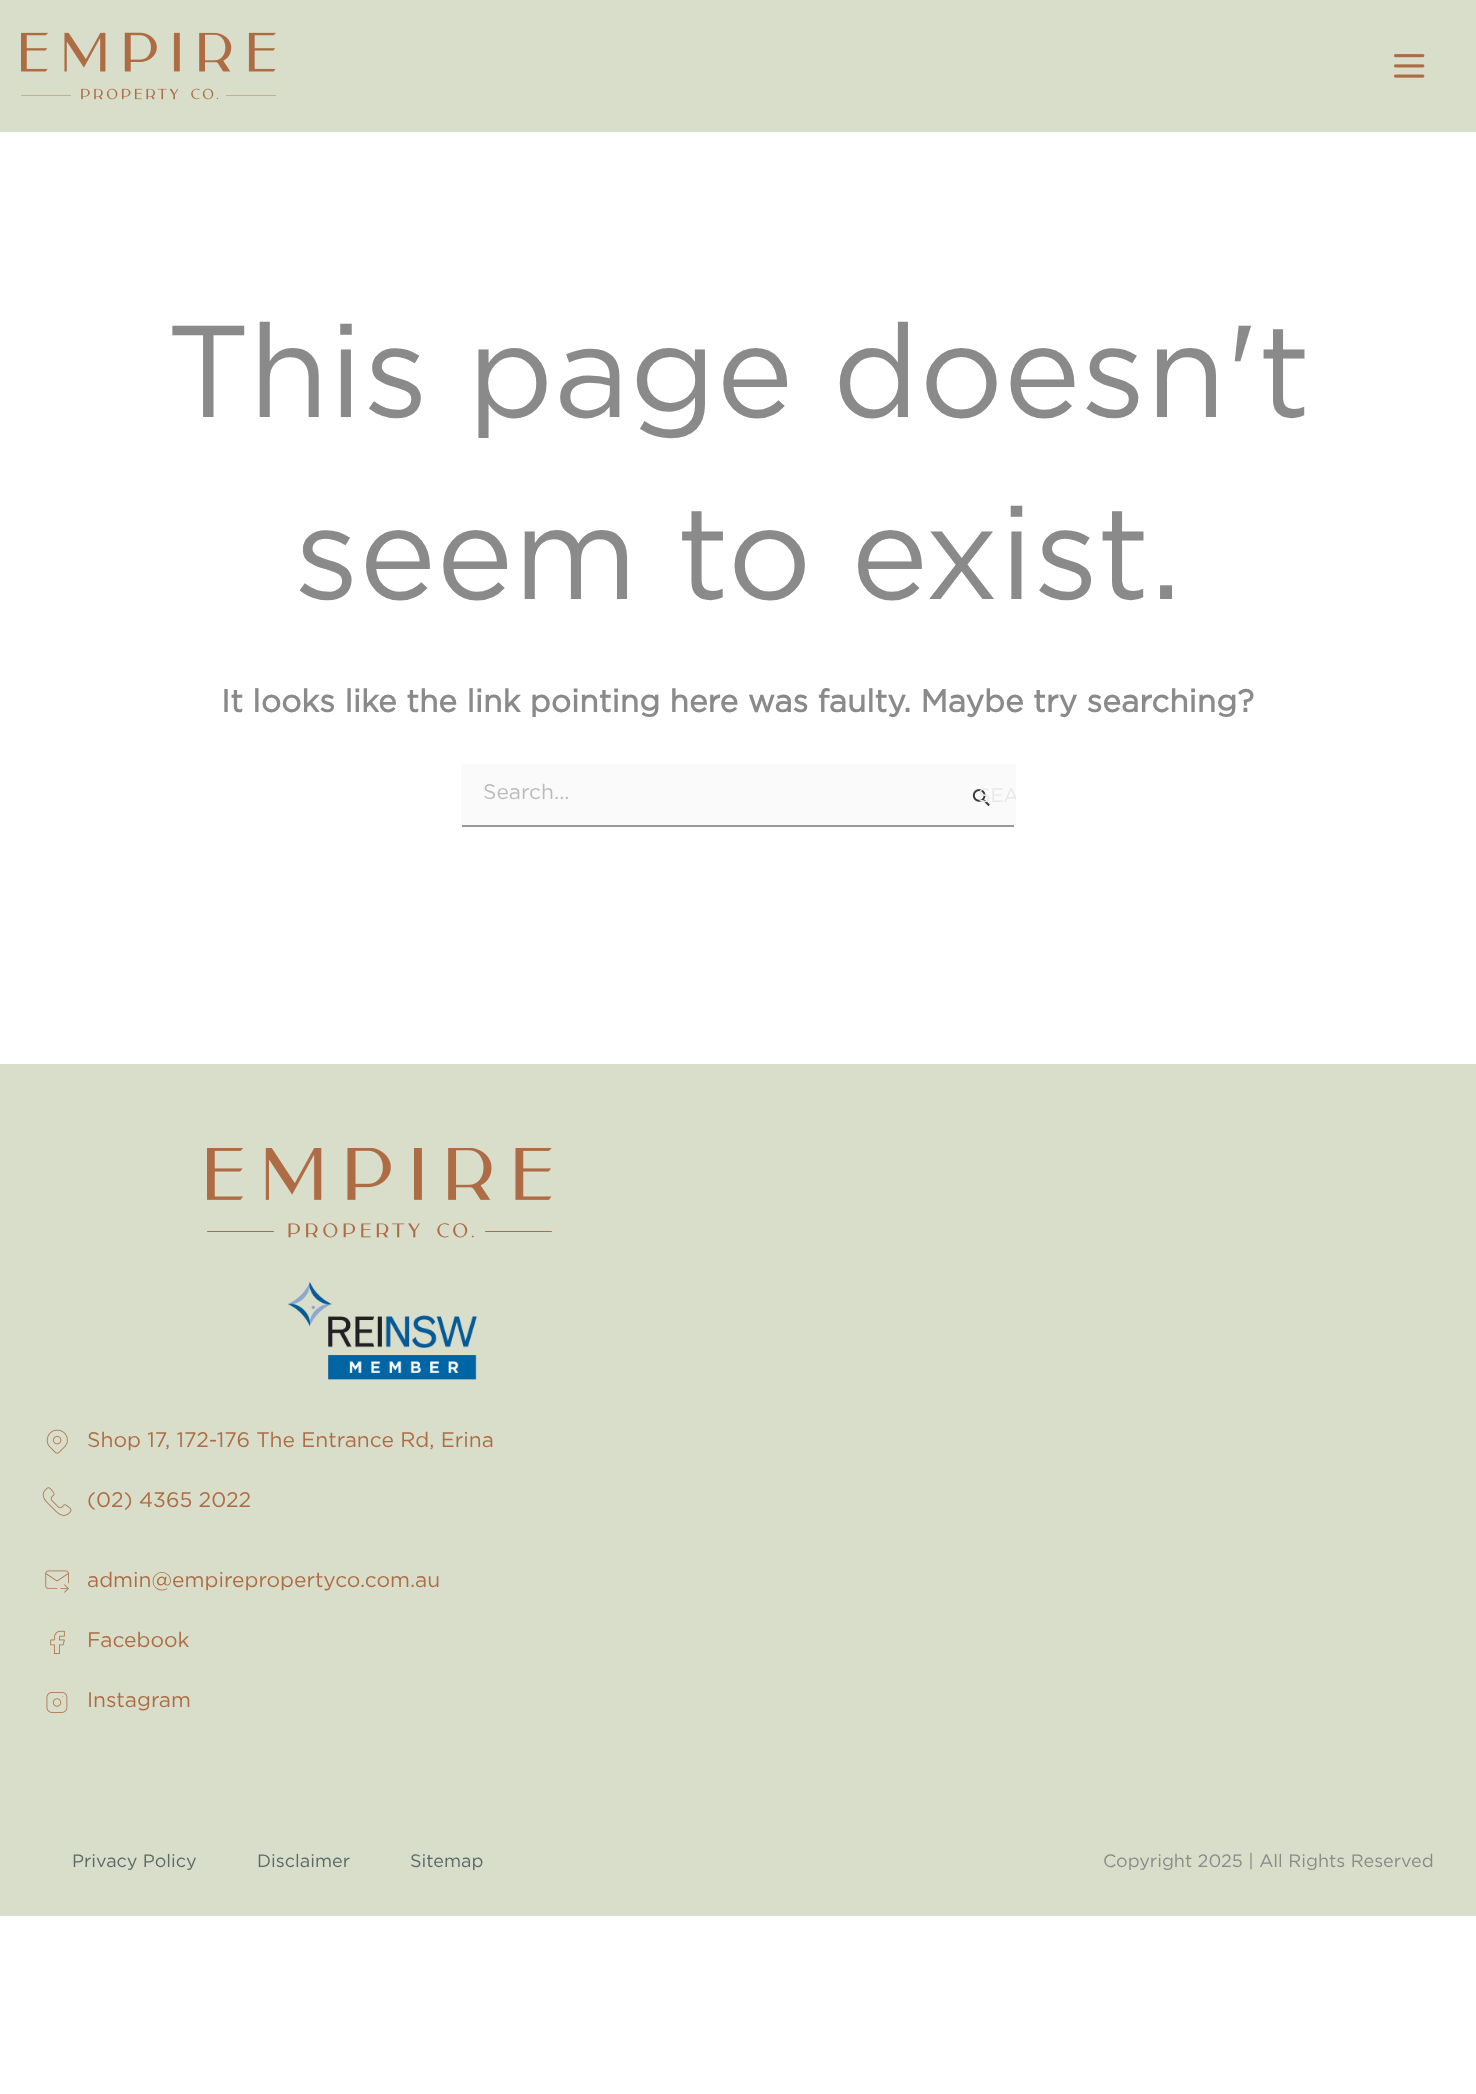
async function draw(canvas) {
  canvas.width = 1476
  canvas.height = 2094
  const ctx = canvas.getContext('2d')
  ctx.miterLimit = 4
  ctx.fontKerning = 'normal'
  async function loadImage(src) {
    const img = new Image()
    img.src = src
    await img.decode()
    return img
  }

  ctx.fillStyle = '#fff'
  ctx.fillRect(0, 0, 1476, 2094)
  ctx.fillStyle = '#d8deca'
  ctx.fillRect(0, 0, 1476, 132)
  ctx.drawImage(await loadImage('image0.png'), 21, 32, 255, 68)
  ctx.drawImage(await loadImage('image1.png'), 1394, 54, 31, 24)
  ctx.font = '130.5px Gotham'
  ctx.fillStyle = '#8a8a8a'
  ctx.fillText('This page doesn\'t', 166, 417)
  ctx.fillText('seem to exist.', 294, 599)
  ctx.font = 'bold 31.5px Gotham'
  ctx.fillText('It looks like the link pointing here was faulty. Maybe try searching?', 221, 712)
  ctx.fillStyle = '#fafafa'
  ctx.beginPath()
  ctx.roundRect(461, 764, 555, 63, 3)
  ctx.fill()
  ctx.fillStyle = '#989898'
  ctx.fillRect(462, 825, 552, 2)
  ctx.font = '21px Gotham'
  ctx.fillStyle = '#bbb'
  ctx.fillText('Search...', 483, 799)
  ctx.drawImage(await loadImage('image2.png'), 972, 789, 18, 17)
  ctx.save()
  ctx.beginPath()
  ctx.roundRect(948, 764, 68, 67, 3)
  ctx.clip()
  ctx.font = '19.5px Gotham'
  ctx.fillStyle = '#e8e8e8'
  ctx.fillText('SEA', 978, 802)
  ctx.restore()
  ctx.fillStyle = '#d8deca'
  ctx.fillRect(0, 1064, 1476, 852)
  ctx.drawImage(await loadImage('image3.png'), 207, 1148, 345, 90)
  ctx.drawImage(await loadImage('image4.png'), 287, 1282, 190, 98)
  ctx.drawImage(await loadImage('image5.png'), 46, 1429, 22, 25)
  ctx.fillStyle = '#ae6c45'
  ctx.fillText('Shop 17, 172-176 The Entrance Rd, Erina', 87, 1447)
  ctx.drawImage(await loadImage('image6.png'), 42, 1487, 30, 29)
  ctx.fillText('(02) 4365 2022', 87, 1507)
  ctx.drawImage(await loadImage('image7.png'), 45, 1570, 24, 23)
  ctx.fillText('admin@empirepropertyco.com.au', 87, 1587)
  ctx.drawImage(await loadImage('image8.png'), 50, 1630, 15, 24)
  ctx.fillText('Facebook', 87, 1647)
  ctx.drawImage(await loadImage('image9.png'), 46, 1692, 22, 21)
  ctx.fillText('Instagram', 87, 1707)
  ctx.font = '18px Gotham'
  ctx.fillStyle = '#5c6768'
  ctx.fillText('Privacy Policy', 72, 1867)
  ctx.fillText('Disclaimer', 257, 1867)
  ctx.fillText('Sitemap', 410, 1867)
  ctx.fillStyle = '#8a8a8a'
  ctx.fillText('Copyright 2025 | All Rights Reserved', 1103, 1867)
}

draw(document.querySelector('canvas'))
